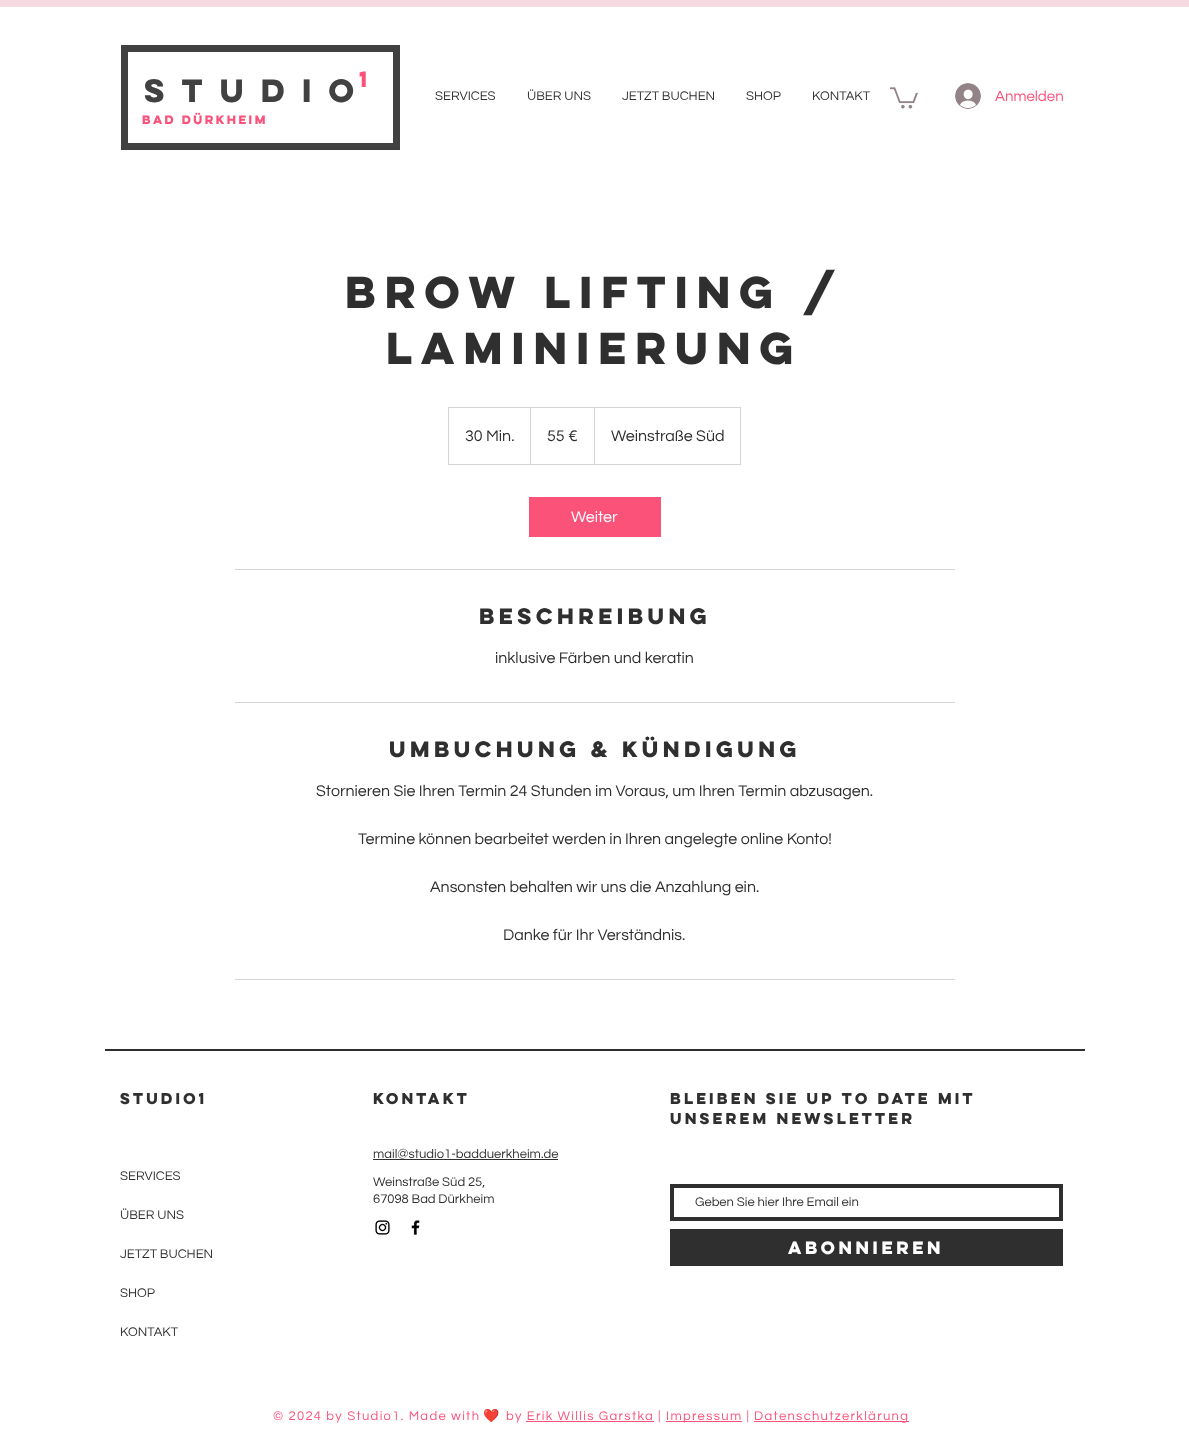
async function draw(canvas) {
  canvas.width = 1189
  canvas.height = 1452
  const ctx = canvas.getContext('2d')
  ctx.miterLimit = 4
  ctx.fontKerning = 'normal'
  async function loadImage(src) {
    const img = new Image()
    img.src = src
    await img.decode()
    return img
  }

  ctx.fillStyle = '#fff'
  ctx.fillRect(0, 0, 1189, 1452)
  ctx.fillStyle = '#f5dae1'
  ctx.fillRect(0, 0, 1189, 7)
  ctx.strokeStyle = '#414142'
  ctx.lineWidth = 7
  ctx.strokeRect(124.5, 48.5, 272, 98)
  ctx.letterSpacing = '10.75px'
  ctx.font = 'bold 29px "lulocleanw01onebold"'
  ctx.fillStyle = '#414142'
  ctx.fillText('Studio', 144, 102)
  ctx.letterSpacing = '0px'
  ctx.font = 'bold 11px "lulocleanw01onebold"'
  ctx.fillStyle = '#fb527a'
  ctx.fillText('Bad Dürkheim', 142, 124)
  ctx.letterSpacing = '7px'
  ctx.font = 'bold 20px "lulocleanw01onebold"'
  ctx.fillText('1', 359, 87)
  ctx.letterSpacing = '0px'
  ctx.font = '13px Questrial'
  ctx.fillStyle = '#2f2f30'
  ctx.fillText('SERVICES', 435, 100)
  ctx.fillText('ÜBER UNS', 527, 100)
  ctx.fillText('JETZT BUCHEN', 622, 100)
  ctx.fillText('SHOP', 746, 100)
  ctx.fillText('KONTAKT', 812, 100)
  ctx.drawImage(await loadImage('image0.png'), 890, 87, 28, 22)
  ctx.drawImage(await loadImage('image1.png'), 955, 83, 26, 26)
  ctx.font = '15px Questrial'
  ctx.fillStyle = '#fb527a'
  ctx.fillText('Anmelden', 995, 101)
  ctx.font = 'bold 40px "lulocleanw01onebold"'
  ctx.fillStyle = '#2f2f30'
  ctx.fillText('Brow Lifting /', 345, 308)
  ctx.fillText('Laminierung', 386, 364)
  ctx.strokeStyle = '#d5d5d6'
  ctx.lineWidth = 1
  ctx.strokeRect(448.5, 407.5, 292, 57)
  ctx.font = '16px Questrial'
  ctx.fillText('30 Min.', 465, 441)
  ctx.fillStyle = '#d5d5d6'
  ctx.beginPath()
  ctx.moveTo(530, 464)
  ctx.lineTo(530, 407)
  ctx.lineTo(531, 408)
  ctx.lineTo(531, 464)
  ctx.closePath()
  ctx.fill()
  ctx.fillStyle = '#2f2f30'
  ctx.fillText('55 €', 547, 441)
  ctx.fillStyle = '#d5d5d6'
  ctx.beginPath()
  ctx.moveTo(594, 464)
  ctx.lineTo(594, 407)
  ctx.lineTo(595, 408)
  ctx.lineTo(595, 464)
  ctx.closePath()
  ctx.fill()
  ctx.fillStyle = '#2f2f30'
  ctx.fillText('Weinstraße Süd', 611, 441)
  ctx.fillStyle = '#fb527a'
  ctx.fillRect(529, 497, 132, 40)
  ctx.fillStyle = '#fff'
  ctx.fillText('Weiter', 571, 522)
  ctx.fillStyle = '#d5d5d6'
  ctx.fillRect(235, 569, 720, 1)
  ctx.font = 'bold 20px "lulocleanw01onebold"'
  ctx.fillStyle = '#2f2f30'
  ctx.fillText('Beschreibung', 479, 624)
  ctx.font = '16px Questrial'
  ctx.fillText('inklusive Färben und keratin', 495, 663)
  ctx.fillStyle = '#d5d5d6'
  ctx.fillRect(235, 702, 720, 1)
  ctx.font = 'bold 20px "lulocleanw01onebold"'
  ctx.fillStyle = '#2f2f30'
  ctx.fillText('Umbuchung & Kündigung', 389, 757)
  ctx.font = '16px Questrial'
  ctx.fillText('Stornieren Sie Ihren Termin 24 Stunden im Voraus, um Ihren Termin abzusagen.', 316, 796)
  ctx.fillText('Termine können bearbeitet werden in Ihren angelegte online Konto!', 358, 844)
  ctx.fillText('Ansonsten behalten wir uns die Anzahlung ein.', 430, 892)
  ctx.fillText('Danke für Ihr Verständnis.', 503, 940)
  ctx.fillStyle = '#d5d5d6'
  ctx.fillRect(235, 979, 720, 1)
  ctx.fillStyle = '#2f2f30'
  ctx.fillRect(105, 1049, 980, 2)
  ctx.font = 'bold 14px "lulocleanw01onebold"'
  ctx.fillText('Studio1', 120, 1104)
  ctx.fillText('Kontakt', 373, 1104)
  ctx.font = '13px Questrial'
  ctx.fillText('mail@studio1-badduerkheim.de', 373, 1158)
  ctx.fillRect(373, 1159, 185, 1)
  ctx.fillText('Weinstraße Süd 25,', 373, 1186)
  ctx.fillText('67098 Bad Dürkheim', 373, 1203)
  ctx.drawImage(await loadImage('image2.png'), 375, 1220, 15, 15)
  ctx.drawImage(await loadImage('image3.png'), 411, 1220, 9, 15)
  ctx.font = 'bold 14px "lulocleanw01onebold"'
  ctx.fillText('Bleiben Sie Up to Date mit', 670, 1104)
  ctx.fillText('unserem Newsletter', 670, 1124)
  ctx.font = '13px Questrial'
  ctx.fillText('SERVICES', 120, 1180)
  ctx.fillText('ÜBER UNS', 120, 1219)
  ctx.fillText('JETZT BUCHEN', 120, 1258)
  ctx.fillText('SHOP', 120, 1297)
  ctx.fillText('KONTAKT', 120, 1336)
  ctx.strokeStyle = '#2f2f30'
  ctx.lineWidth = 4
  ctx.strokeRect(672, 1186, 389, 33)
  ctx.fillText('Geben Sie hier Ihre Email ein', 695, 1206)
  ctx.fillRect(670, 1229, 393, 37)
  ctx.font = 'bold 16px "lulocleanw01onebold"'
  ctx.fillStyle = '#fff'
  ctx.fillText('Abonnieren', 788, 1254)
  ctx.letterSpacing = '1.3px'
  ctx.font = '13px Questrial'
  ctx.fillStyle = '#fb527a'
  ctx.fillText('© 2024 by Studio1. Made with', 273, 1420)
  ctx.font = '13px Noto Color Emoji'
  ctx.fillText('❤️', 483, 1420)
  ctx.font = '13px Questrial'
  ctx.fillText('by Erik Willis Garstka |', 506, 1420)
  ctx.fillRect(526, 1421, 128, 1)
  ctx.fillRect(666, 1421, 76, 1)
  ctx.fillText('Impressum |', 666, 1420)
  ctx.fillRect(754, 1421, 155, 1)
  ctx.fillText('Datenschutzerklärung', 754, 1420)
}

draw(document.querySelector('canvas'))
